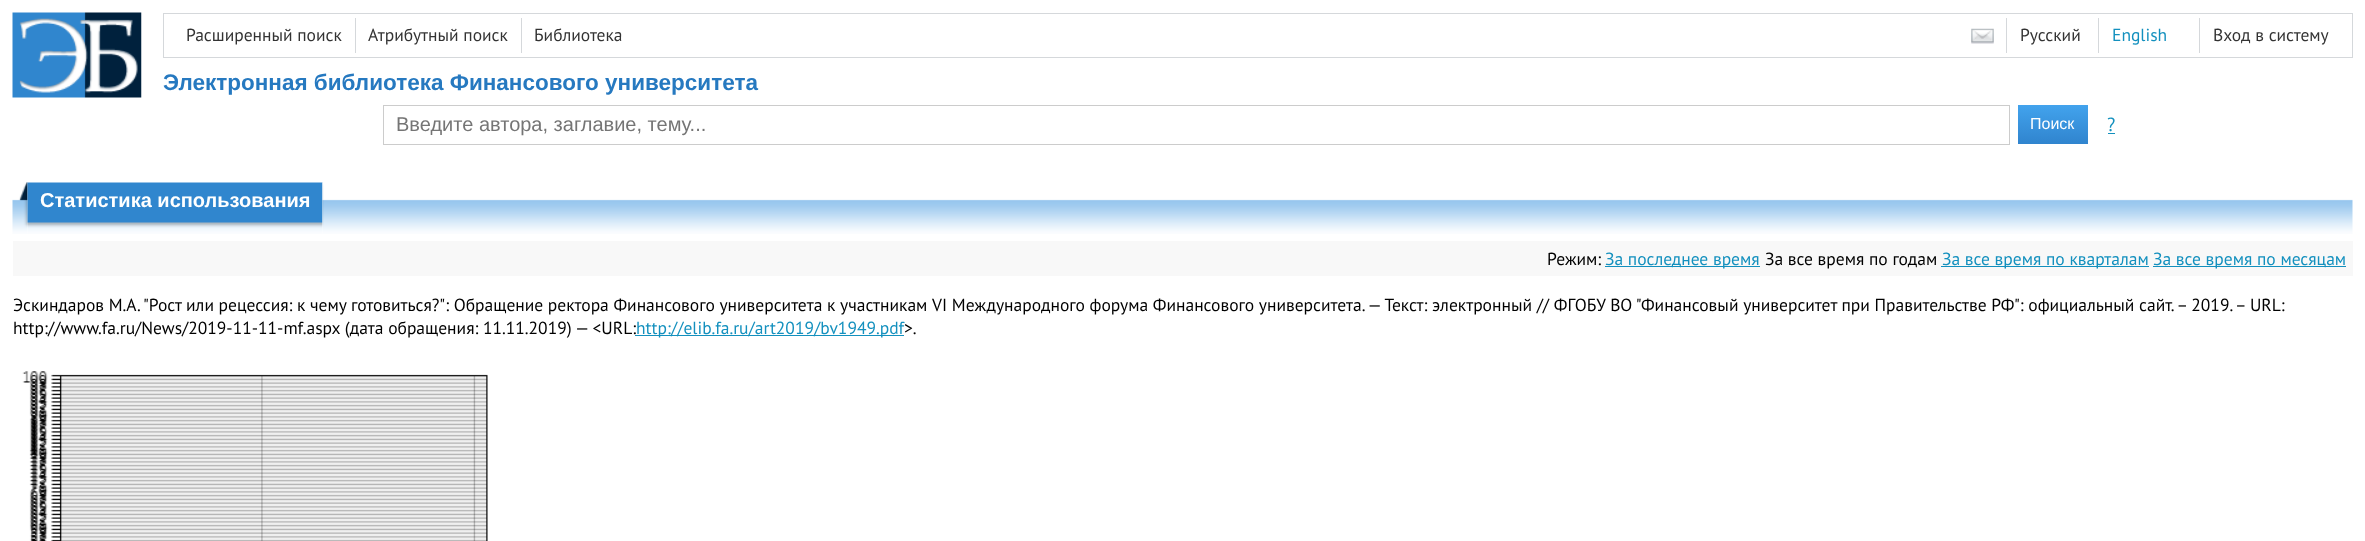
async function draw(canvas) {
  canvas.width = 2365
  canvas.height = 541
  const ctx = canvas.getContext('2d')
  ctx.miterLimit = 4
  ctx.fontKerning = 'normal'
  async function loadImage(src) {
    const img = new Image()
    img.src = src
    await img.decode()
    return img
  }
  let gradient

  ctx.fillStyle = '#fff'
  ctx.fillRect(0, 0, 2365, 541)
  ctx.drawImage(await loadImage('image0.png'), 12, 12, 130, 86)
  ctx.strokeStyle = '#d5d8db'
  ctx.strokeRect(163.5, 13.5, 2189, 44)
  ctx.font = '17.5px PT Sans'
  ctx.fillStyle = '#333'
  ctx.fillText('Расширенный поиск', 186, 41)
  ctx.fillStyle = '#d5d8db'
  ctx.fillRect(355, 18, 1, 35)
  ctx.fillStyle = '#333'
  ctx.fillText('Атрибутный поиск', 368, 41)
  ctx.fillStyle = '#d5d8db'
  ctx.fillRect(521, 18, 1, 35)
  ctx.fillStyle = '#333'
  ctx.fillText('Библиотека', 534, 41)
  ctx.drawImage(await loadImage('image1.png'), 1971, 28, 23, 16)
  ctx.fillText('Русский', 2020, 41)
  ctx.fillStyle = '#d5d8db'
  ctx.fillRect(2006, 18, 1, 35)
  ctx.fillStyle = '#1390be'
  ctx.fillText('English', 2112, 41)
  ctx.fillStyle = '#d5d8db'
  ctx.fillRect(2098, 18, 1, 35)
  ctx.fillStyle = '#333'
  ctx.fillText('Вход в систему', 2213, 41)
  ctx.fillStyle = '#d5d8db'
  ctx.fillRect(2199, 18, 1, 35)
  ctx.font = 'bold 22.5px Liberation Sans'
  ctx.fillStyle = '#2679c0'
  ctx.fillText('Электронная библиотека Финансового университета', 163, 90)
  ctx.strokeStyle = '#ccc'
  ctx.strokeRect(383.5, 105.5, 1626, 39)
  ctx.font = '20px Liberation Sans'
  ctx.fillStyle = '#757575'
  ctx.fillText('Введите автора, заглавие, тему...', 396, 131)
  gradient = ctx.createLinearGradient(2053, 105, 2053, 144)
  gradient.addColorStop(0, '#42a3ed')
  gradient.addColorStop(1, '#3084ce')
  ctx.fillStyle = gradient
  ctx.fillRect(2018, 105, 70, 39)
  ctx.font = '16px Liberation Sans'
  ctx.fillStyle = '#fff'
  ctx.fillText('Поиск', 2030, 129)
  ctx.font = '19px PT Sans'
  ctx.fillStyle = '#1390be'
  ctx.fillText('?', 2107, 131)
  ctx.fillRect(2108, 133, 7, 1)
  ctx.drawImage(await loadImage('image2.png'), 12, 182, 16, 52)
  ctx.drawImage(await loadImage('image3.png'), 27, 182, 296, 52)
  ctx.font = 'bold 20px Liberation Sans'
  ctx.fillStyle = '#fff'
  ctx.fillText('Статистика использования', 40, 207)
  ctx.drawImage(await loadImage('image4.png'), 322, 182, 3, 52)
  ctx.drawImage(await loadImage('image5.png'), 325, 199, 2028, 35)
  ctx.fillStyle = '#f8f8f8'
  ctx.fillRect(13, 241, 2340, 35)
  ctx.font = '17.5px PT Sans'
  ctx.fillStyle = '#000'
  ctx.fillText('Режим:', 1547, 265)
  ctx.fillStyle = '#1390be'
  ctx.fillRect(1605, 266, 155, 1)
  ctx.fillText('За последнее время', 1605, 265)
  ctx.fillStyle = '#000'
  ctx.fillText('За все время по годам', 1765, 265)
  ctx.fillStyle = '#1390be'
  ctx.fillRect(1941, 266, 208, 1)
  ctx.fillText('За все время по кварталам', 1942, 265)
  ctx.fillRect(2153, 266, 193, 1)
  ctx.fillText('За все время по месяцам', 2153, 265)
  ctx.fillStyle = '#000'
  ctx.fillText('Эскиндаров М.А. "Рост или рецессия: к чему готовиться?": Обращение ректора Финансового университета к участникам VI Международного форума Финансового университета. — Текст: электронный // ФГОБУ ВО "Финансовый университет при Правительстве РФ": официальный сайт. – 2019. – URL:', 13, 311)
  ctx.fillText('http://www.fa.ru/News/2019-11-11-mf.aspx (дата обращения: 11.11.2019) — <URL:', 13, 334)
  ctx.fillStyle = '#1390be'
  ctx.fillRect(635, 335, 269, 1)
  ctx.fillText('http://elib.fa.ru/art2019/bv1949.pdf', 636, 334)
  ctx.fillStyle = '#000'
  ctx.fillText('>.', 904, 334)
  ctx.drawImage(await loadImage('image6.png'), 22, 371, 466, 170)
}

draw(document.querySelector('canvas'))
